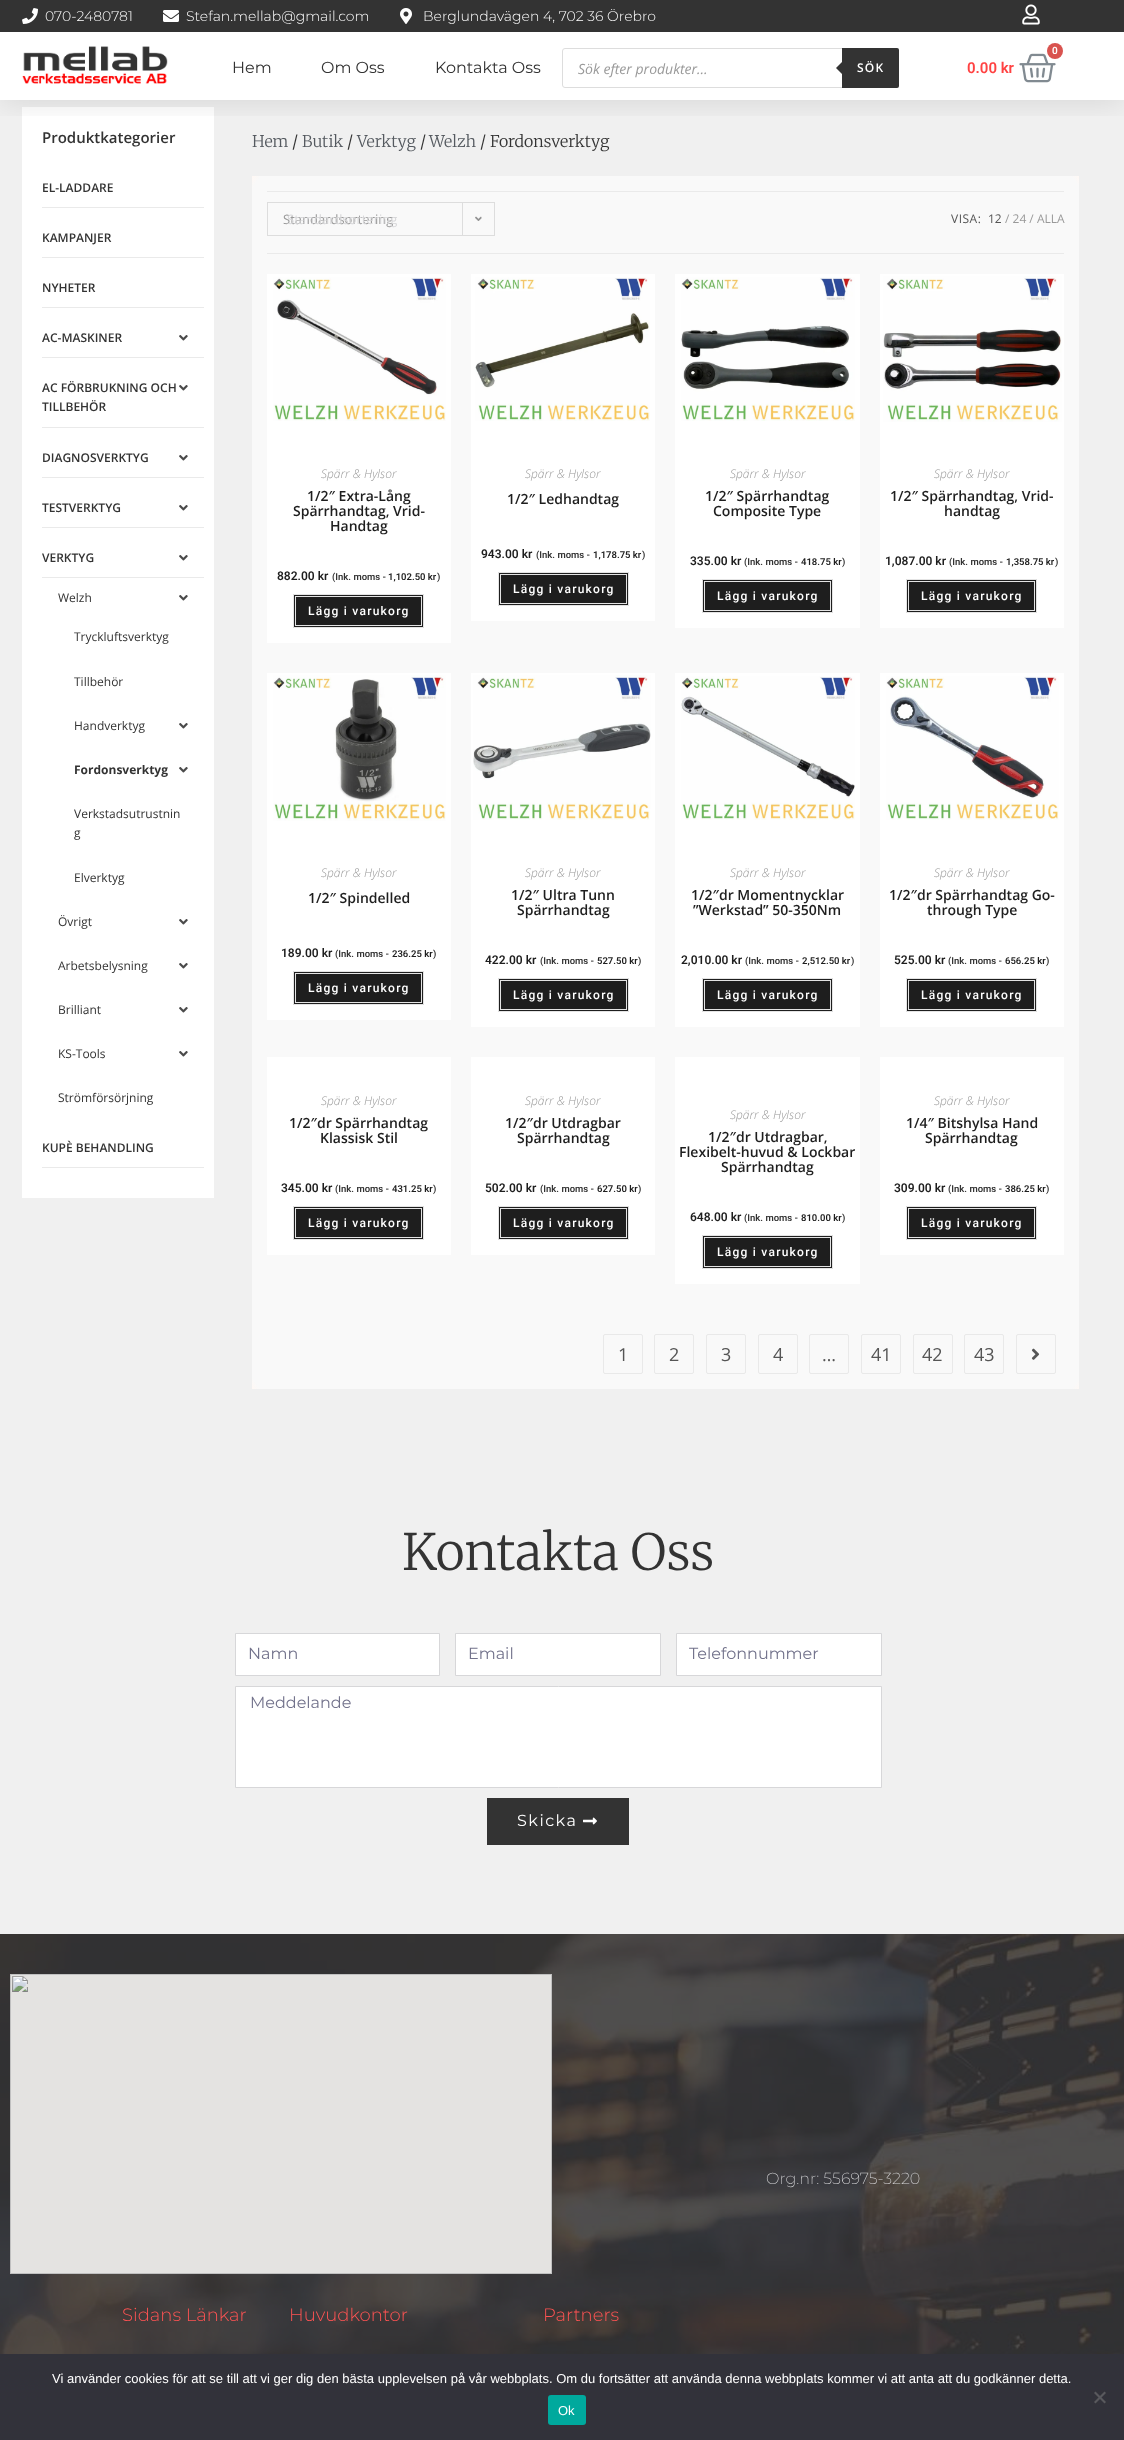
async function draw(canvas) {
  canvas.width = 1124
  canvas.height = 2440
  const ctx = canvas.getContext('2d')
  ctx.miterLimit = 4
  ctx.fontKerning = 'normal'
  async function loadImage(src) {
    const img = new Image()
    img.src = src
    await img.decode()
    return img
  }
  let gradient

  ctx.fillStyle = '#f0f0f0'
  ctx.fillRect(0, 0, 1124, 2440)
  ctx.fillStyle = '#fff'
  ctx.fillRect(0, 32, 1124, 68)
  ctx.fillRect(22, 107, 192, 1091)
  ctx.save()
  ctx.beginPath()
  ctx.rect(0, 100, 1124, 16)
  ctx.clip()
  ctx.fillStyle = '#0000001a'
  ctx.filter = 'blur(15px)'
  ctx.beginPath()
  ctx.rect(0, 3, 1124, 100)
  ctx.fill()
  ctx.filter = 'none'
  ctx.restore()
  ctx.fillStyle = '#333'
  ctx.fillRect(0, 0, 1124, 32)
  ctx.drawImage(await loadImage('image0.png'), 22, 8, 16, 16)
  ctx.font = '300 14px Montserrat'
  ctx.fillStyle = '#fff'
  ctx.fillText('070-2480781', 45, 21)
  ctx.drawImage(await loadImage('image1.png'), 163, 10, 16, 12)
  ctx.fillText('Stefan.mellab@gmail.com', 186, 21)
  ctx.drawImage(await loadImage('image2.png'), 400, 8, 12, 16)
  ctx.fillText('Berglundavägen 4, 702 36 Örebro', 423, 21)
  ctx.drawImage(await loadImage('image3.png'), 1022, 4, 18, 21)
  ctx.drawImage(await loadImage('image4.png'), 22, 46, 146, 38)
  ctx.font = '16px Montserrat'
  ctx.fillStyle = '#333'
  ctx.fillText('Hem', 232, 73)
  ctx.fillText('Om Oss', 321, 73)
  ctx.fillText('Kontakta Oss', 435, 73)
  ctx.beginPath()
  ctx.roundRect(562.5, 48.5, 336, 39, 2.5)
  ctx.strokeStyle = '#ddd'
  ctx.stroke()
  ctx.font = 'italic 14px Open Sans'
  ctx.fillStyle = '#999'
  ctx.fillText('Sök efter produkter…', 578, 74)
  ctx.fillStyle = '#333'
  ctx.beginPath()
  ctx.roundRect(842, 48, 57, 40, [0, 2, 2, 0])
  ctx.fill()
  ctx.beginPath()
  ctx.moveTo(844, 60)
  ctx.lineTo(844, 76)
  ctx.lineTo(836, 68)
  ctx.closePath()
  ctx.fill()
  ctx.letterSpacing = '1.25px'
  ctx.font = '600 12px Open Sans'
  ctx.fillStyle = '#fff'
  ctx.fillText('SÖK', 857, 72)
  ctx.drawImage(await loadImage('image5.png'), 1019, 53, 37, 30)
  ctx.fillStyle = '#d9534f'
  ctx.beginPath()
  ctx.arc(1055, 51, 8, 0, 2 * Math.PI)
  ctx.fill()
  ctx.letterSpacing = '0px'
  ctx.font = '600 10px Roboto'
  ctx.fillStyle = '#fff'
  ctx.fillText('0', 1052, 54)
  ctx.font = '600 15px Roboto'
  ctx.fillStyle = '#ff4242'
  ctx.fillText('0.00 kr', 967, 73)
  ctx.font = '600 15px Open Sans'
  ctx.fillStyle = '#333'
  ctx.fillText('Produktkategorier', 42, 143)
  ctx.fillStyle = '#eaeaea'
  ctx.fillRect(42, 207, 162, 1)
  ctx.font = '600 12px Open Sans'
  ctx.fillStyle = '#333'
  ctx.fillText('EL-LADDARE', 42, 192)
  ctx.fillStyle = '#eaeaea'
  ctx.fillRect(42, 257, 162, 1)
  ctx.fillStyle = '#333'
  ctx.fillText('KAMPANJER', 42, 242)
  ctx.fillStyle = '#eaeaea'
  ctx.fillRect(42, 307, 162, 1)
  ctx.fillStyle = '#333'
  ctx.fillText('NYHETER', 42, 292)
  ctx.fillStyle = '#eaeaea'
  ctx.fillRect(42, 357, 162, 1)
  ctx.fillStyle = '#333'
  ctx.fillText('AC-MASKINER', 42, 342)
  ctx.drawImage(await loadImage('image6.png'), 179, 335, 9, 6)
  ctx.fillStyle = '#eaeaea'
  ctx.fillRect(42, 427, 162, 1)
  ctx.fillStyle = '#333'
  ctx.fillText('AC FÖRBRUKNING OCH', 42, 392)
  ctx.fillText('TILLBEHÖR', 42, 411)
  ctx.drawImage(await loadImage('image6.png'), 179, 385, 9, 6)
  ctx.fillStyle = '#eaeaea'
  ctx.fillRect(42, 477, 162, 1)
  ctx.fillStyle = '#333'
  ctx.fillText('DIAGNOSVERKTYG', 42, 462)
  ctx.drawImage(await loadImage('image6.png'), 179, 455, 9, 6)
  ctx.fillStyle = '#eaeaea'
  ctx.fillRect(42, 527, 162, 1)
  ctx.fillStyle = '#333'
  ctx.fillText('TESTVERKTYG', 42, 512)
  ctx.drawImage(await loadImage('image6.png'), 179, 505, 9, 6)
  ctx.fillStyle = '#eaeaea'
  ctx.fillRect(42, 577, 162, 1)
  ctx.fillStyle = '#333'
  ctx.fillText('VERKTYG', 42, 562)
  ctx.drawImage(await loadImage('image6.png'), 179, 555, 9, 6)
  ctx.font = '12px Open Sans'
  ctx.fillText('Welzh', 58, 602)
  ctx.drawImage(await loadImage('image6.png'), 179, 595, 9, 6)
  ctx.fillText('Tryckluftsverktyg', 74, 641)
  ctx.fillText('Tillbehör', 74, 686)
  ctx.fillText('Handverktyg', 74, 730)
  ctx.drawImage(await loadImage('image6.png'), 179, 723, 9, 6)
  ctx.font = 'bold 12px Open Sans'
  ctx.fillText('Fordonsverktyg', 74, 774)
  ctx.drawImage(await loadImage('image6.png'), 179, 767, 9, 6)
  ctx.font = '12px Open Sans'
  ctx.fillText('Verkstadsutrustnin', 74, 818)
  ctx.fillText('g', 74, 837)
  ctx.fillText('Elverktyg', 74, 882)
  ctx.fillText('Övrigt', 58, 926)
  ctx.drawImage(await loadImage('image6.png'), 179, 919, 9, 6)
  ctx.fillText('Arbetsbelysning', 58, 970)
  ctx.drawImage(await loadImage('image6.png'), 179, 963, 9, 6)
  ctx.fillText('Brilliant', 58, 1014)
  ctx.drawImage(await loadImage('image6.png'), 179, 1007, 9, 6)
  ctx.fillText('KS-Tools', 58, 1058)
  ctx.drawImage(await loadImage('image6.png'), 179, 1051, 9, 6)
  ctx.fillText('Strömförsörjning', 58, 1102)
  ctx.fillStyle = '#eaeaea'
  ctx.fillRect(42, 1167, 162, 1)
  ctx.font = '600 12px Open Sans'
  ctx.fillStyle = '#333'
  ctx.fillText('KUPÈ BEHANDLING', 42, 1152)
  ctx.font = '300 16px Merriweather'
  ctx.fillStyle = '#54595f'
  ctx.fillText('Hem', 252, 147)
  ctx.fillStyle = '#333'
  ctx.fillText('/', 292, 147)
  ctx.fillStyle = '#54595f'
  ctx.fillText('Butik', 302, 147)
  ctx.fillStyle = '#333'
  ctx.fillText('/', 347, 147)
  ctx.fillStyle = '#54595f'
  ctx.fillText('Verktyg', 357, 147)
  ctx.fillStyle = '#333'
  ctx.fillText('/', 420, 147)
  ctx.fillStyle = '#54595f'
  ctx.fillText('Welzh', 429, 147)
  ctx.fillStyle = '#333'
  ctx.fillText('/ Fordonsverktyg', 480, 147)
  gradient = ctx.createRadialGradient(666, 533.86, 0, 666, 533.86, 585)
  gradient.addColorStop(0.99, '#f9f9f9')
  gradient.addColorStop(1, '#fff8f4')
  ctx.fillStyle = gradient
  ctx.beginPath()
  ctx.rect(252, 176, 827, 1213)
  ctx.save()
  ctx.clip()
  ctx.scale(1, 858 / 585)
  ctx.fillRect(0, 0, 1124, 1664)
  ctx.restore()
  ctx.fillStyle = '#eaeaea'
  ctx.fillRect(267, 191, 797, 1)
  ctx.fillRect(267, 253, 797, 1)
  ctx.strokeRect(267.5, 202.5, 227, 33)
  ctx.font = '13px Open Sans'
  ctx.fillStyle = '#999'
  ctx.fillText('Standardsortering', 283, 224)
  ctx.fillStyle = '#ddd'
  ctx.fillRect(462, 203, 1, 32)
  ctx.drawImage(await loadImage('image7.png'), 475, 216, 7, 5)
  ctx.beginPath()
  ctx.moveTo(482, 216.5)
  ctx.lineTo(486, 220.5)
  ctx.lineTo(490, 216.5)
  ctx.strokeStyle = '#f9f9f9'
  ctx.lineWidth = 2
  ctx.stroke()
  ctx.fillStyle = '#d7d7d9'
  ctx.fillText('Standardsortering', 287, 224)
  ctx.letterSpacing = '0.5px'
  ctx.font = '12px Open Sans'
  ctx.fillStyle = '#555'
  ctx.fillText('VISA:', 951, 223)
  ctx.letterSpacing = '0px'
  ctx.fillText('12', 988, 223)
  ctx.fillStyle = '#999'
  ctx.fillText('/ 24 / ALLA', 1005, 223)
  ctx.fillStyle = '#fff'
  ctx.fillRect(267, 274, 184, 369)
  ctx.drawImage(await loadImage('image8.png'), 273, 277, 173, 144)
  ctx.font = 'italic 300 12px Open Sans'
  ctx.fillStyle = '#999'
  ctx.fillText('Spärr & Hylsor', 321, 478)
  ctx.font = '600 14px Open Sans'
  ctx.fillStyle = '#1e1e1e'
  ctx.fillText('1/2″ Extra-Lång', 307, 501)
  ctx.fillText('Spärrhandtag, Vrid-', 293, 516)
  ctx.fillText('Handtag', 330, 531)
  ctx.font = '600 12px Roboto'
  ctx.fillText('882.00 kr', 277, 580)
  ctx.font = '600 9.5px Roboto'
  ctx.fillStyle = '#333'
  ctx.fillText('(Ink. moms -', 332, 580)
  ctx.fillStyle = '#1e1e1e'
  ctx.fillText('1,102.50 kr', 388, 580)
  ctx.fillStyle = '#333'
  ctx.fillText(')', 437, 580)
  ctx.fillStyle = '#1e1e1e'
  ctx.beginPath()
  ctx.rect(293.5, 594.5, 130, 33)
  ctx.fill()
  ctx.strokeStyle = '#e4e4e4'
  ctx.lineWidth = 1
  ctx.stroke()
  ctx.strokeRect(295.5, 596.5, 126, 29)
  ctx.letterSpacing = '1.25px'
  ctx.font = '500 12px Roboto'
  ctx.fillStyle = '#fff'
  ctx.fillText('Lägg i varukorg', 308, 615)
  ctx.fillRect(471, 274, 184, 347)
  ctx.drawImage(await loadImage('image9.png'), 475, 277, 175, 144)
  ctx.letterSpacing = '0px'
  ctx.font = 'italic 300 12px Open Sans'
  ctx.fillStyle = '#999'
  ctx.fillText('Spärr & Hylsor', 525, 478)
  ctx.font = '600 14px Open Sans'
  ctx.fillStyle = '#1e1e1e'
  ctx.fillText('1/2″ Ledhandtag', 507, 504)
  ctx.font = '600 12px Roboto'
  ctx.fillText('943.00 kr', 481, 558)
  ctx.font = '600 9.5px Roboto'
  ctx.fillStyle = '#333'
  ctx.fillText('(Ink. moms -', 536, 558)
  ctx.fillStyle = '#1e1e1e'
  ctx.fillText('1,178.75 kr', 593, 558)
  ctx.fillStyle = '#333'
  ctx.fillText(')', 642, 558)
  ctx.fillStyle = '#1e1e1e'
  ctx.beginPath()
  ctx.rect(498.5, 572.5, 130, 33)
  ctx.fill()
  ctx.stroke()
  ctx.strokeRect(500.5, 574.5, 126, 29)
  ctx.letterSpacing = '1.25px'
  ctx.font = '500 12px Roboto'
  ctx.fillStyle = '#fff'
  ctx.fillText('Lägg i varukorg', 513, 593)
  ctx.fillRect(675, 274, 185, 354)
  ctx.drawImage(await loadImage('image10.png'), 681, 277, 174, 144)
  ctx.letterSpacing = '0px'
  ctx.font = 'italic 300 12px Open Sans'
  ctx.fillStyle = '#999'
  ctx.fillText('Spärr & Hylsor', 730, 478)
  ctx.font = '600 14px Open Sans'
  ctx.fillStyle = '#1e1e1e'
  ctx.fillText('1/2″ Spärrhandtag', 705, 501)
  ctx.fillText('Composite Type', 713, 516)
  ctx.font = '600 12px Roboto'
  ctx.fillText('335.00 kr', 690, 565)
  ctx.font = '600 9.5px Roboto'
  ctx.fillStyle = '#333'
  ctx.fillText('(Ink. moms -', 744, 565)
  ctx.fillStyle = '#1e1e1e'
  ctx.fillText('418.75 kr', 801, 565)
  ctx.fillStyle = '#333'
  ctx.fillText(')', 842, 565)
  ctx.fillStyle = '#1e1e1e'
  ctx.beginPath()
  ctx.rect(702.5, 579.5, 130, 33)
  ctx.fill()
  ctx.stroke()
  ctx.strokeRect(704.5, 581.5, 126, 29)
  ctx.letterSpacing = '1.25px'
  ctx.font = '500 12px Roboto'
  ctx.fillStyle = '#fff'
  ctx.fillText('Lägg i varukorg', 717, 600)
  ctx.fillRect(880, 274, 184, 354)
  ctx.drawImage(await loadImage('image11.png'), 883, 276, 179, 146)
  ctx.letterSpacing = '0px'
  ctx.font = 'italic 300 12px Open Sans'
  ctx.fillStyle = '#999'
  ctx.fillText('Spärr & Hylsor', 934, 478)
  ctx.font = '600 14px Open Sans'
  ctx.fillStyle = '#1e1e1e'
  ctx.fillText('1/2″ Spärrhandtag, Vrid-', 890, 501)
  ctx.fillText('handtag', 944, 516)
  ctx.font = '600 12px Roboto'
  ctx.fillText('1,087.00 kr', 885, 565)
  ctx.font = '600 9.5px Roboto'
  ctx.fillStyle = '#333'
  ctx.fillText('(Ink. moms -', 949, 565)
  ctx.fillStyle = '#1e1e1e'
  ctx.fillText('1,358.75 kr', 1006, 565)
  ctx.fillStyle = '#333'
  ctx.fillText(')', 1055, 565)
  ctx.fillStyle = '#1e1e1e'
  ctx.beginPath()
  ctx.rect(906.5, 579.5, 130, 33)
  ctx.fill()
  ctx.stroke()
  ctx.strokeRect(908.5, 581.5, 126, 29)
  ctx.letterSpacing = '1.25px'
  ctx.font = '500 12px Roboto'
  ctx.fillStyle = '#fff'
  ctx.fillText('Lägg i varukorg', 921, 600)
  ctx.fillRect(267, 673, 184, 347)
  ctx.drawImage(await loadImage('image12.png'), 273, 675, 173, 146)
  ctx.letterSpacing = '0px'
  ctx.font = 'italic 300 12px Open Sans'
  ctx.fillStyle = '#999'
  ctx.fillText('Spärr & Hylsor', 321, 877)
  ctx.font = '600 14px Open Sans'
  ctx.fillStyle = '#1e1e1e'
  ctx.fillText('1/2″ Spindelled', 308, 903)
  ctx.font = '600 12px Roboto'
  ctx.fillText('189.00 kr', 281, 957)
  ctx.font = '600 9.5px Roboto'
  ctx.fillStyle = '#333'
  ctx.fillText('(Ink. moms -', 335, 957)
  ctx.fillStyle = '#1e1e1e'
  ctx.fillText('236.25 kr', 392, 957)
  ctx.fillStyle = '#333'
  ctx.fillText(')', 433, 957)
  ctx.fillStyle = '#1e1e1e'
  ctx.beginPath()
  ctx.rect(293.5, 971.5, 130, 33)
  ctx.fill()
  ctx.stroke()
  ctx.strokeRect(295.5, 973.5, 126, 29)
  ctx.letterSpacing = '1.25px'
  ctx.font = '500 12px Roboto'
  ctx.fillStyle = '#fff'
  ctx.fillText('Lägg i varukorg', 308, 992)
  ctx.fillRect(471, 673, 184, 354)
  ctx.drawImage(await loadImage('image13.png'), 473, 675, 178, 145)
  ctx.letterSpacing = '0px'
  ctx.font = 'italic 300 12px Open Sans'
  ctx.fillStyle = '#999'
  ctx.fillText('Spärr & Hylsor', 525, 877)
  ctx.font = '600 14px Open Sans'
  ctx.fillStyle = '#1e1e1e'
  ctx.fillText('1/2″ Ultra Tunn', 511, 900)
  ctx.fillText('Spärrhandtag', 517, 915)
  ctx.font = '600 12px Roboto'
  ctx.fillText('422.00 kr', 485, 964)
  ctx.font = '600 9.5px Roboto'
  ctx.fillStyle = '#333'
  ctx.fillText('(Ink. moms -', 540, 964)
  ctx.fillStyle = '#1e1e1e'
  ctx.fillText('527.50 kr', 597, 964)
  ctx.fillStyle = '#333'
  ctx.fillText(')', 638, 964)
  ctx.fillStyle = '#1e1e1e'
  ctx.beginPath()
  ctx.rect(498.5, 978.5, 130, 33)
  ctx.fill()
  ctx.stroke()
  ctx.strokeRect(500.5, 980.5, 126, 29)
  ctx.letterSpacing = '1.25px'
  ctx.font = '500 12px Roboto'
  ctx.fillStyle = '#fff'
  ctx.fillText('Lägg i varukorg', 513, 999)
  ctx.fillRect(675, 673, 185, 354)
  ctx.drawImage(await loadImage('image14.png'), 681, 676, 174, 144)
  ctx.letterSpacing = '0px'
  ctx.font = 'italic 300 12px Open Sans'
  ctx.fillStyle = '#999'
  ctx.fillText('Spärr & Hylsor', 730, 877)
  ctx.font = '600 14px Open Sans'
  ctx.fillStyle = '#1e1e1e'
  ctx.fillText('1/2″dr Momentnycklar', 691, 900)
  ctx.fillText('”Werkstad” 50-350Nm', 693, 915)
  ctx.font = '600 12px Roboto'
  ctx.fillText('2,010.00 kr', 681, 964)
  ctx.font = '600 9.5px Roboto'
  ctx.fillStyle = '#333'
  ctx.fillText('(Ink. moms -', 745, 964)
  ctx.fillStyle = '#1e1e1e'
  ctx.fillText('2,512.50 kr', 802, 964)
  ctx.fillStyle = '#333'
  ctx.fillText(')', 851, 964)
  ctx.fillStyle = '#1e1e1e'
  ctx.beginPath()
  ctx.rect(702.5, 978.5, 130, 33)
  ctx.fill()
  ctx.stroke()
  ctx.strokeRect(704.5, 980.5, 126, 29)
  ctx.letterSpacing = '1.25px'
  ctx.font = '500 12px Roboto'
  ctx.fillStyle = '#fff'
  ctx.fillText('Lägg i varukorg', 717, 999)
  ctx.fillRect(880, 673, 184, 354)
  ctx.drawImage(await loadImage('image15.png'), 886, 676, 173, 144)
  ctx.letterSpacing = '0px'
  ctx.font = 'italic 300 12px Open Sans'
  ctx.fillStyle = '#999'
  ctx.fillText('Spärr & Hylsor', 934, 877)
  ctx.font = '600 14px Open Sans'
  ctx.fillStyle = '#1e1e1e'
  ctx.fillText('1/2″dr Spärrhandtag Go-', 889, 900)
  ctx.fillText('through Type', 927, 915)
  ctx.font = '600 12px Roboto'
  ctx.fillText('525.00 kr', 894, 964)
  ctx.font = '600 9.5px Roboto'
  ctx.fillStyle = '#333'
  ctx.fillText('(Ink. moms -', 948, 964)
  ctx.fillStyle = '#1e1e1e'
  ctx.fillText('656.25 kr', 1005, 964)
  ctx.fillStyle = '#333'
  ctx.fillText(')', 1046, 964)
  ctx.fillStyle = '#1e1e1e'
  ctx.beginPath()
  ctx.rect(906.5, 978.5, 130, 33)
  ctx.fill()
  ctx.stroke()
  ctx.strokeRect(908.5, 980.5, 126, 29)
  ctx.letterSpacing = '1.25px'
  ctx.font = '500 12px Roboto'
  ctx.fillStyle = '#fff'
  ctx.fillText('Lägg i varukorg', 921, 999)
  ctx.fillRect(267, 1057, 184, 198)
  ctx.letterSpacing = '0px'
  ctx.font = 'italic 300 12px Open Sans'
  ctx.fillStyle = '#999'
  ctx.fillText('Spärr & Hylsor', 321, 1105)
  ctx.font = '600 14px Open Sans'
  ctx.fillStyle = '#1e1e1e'
  ctx.fillText('1/2″dr Spärrhandtag', 289, 1128)
  ctx.fillText('Klassisk Stil', 320, 1143)
  ctx.font = '600 12px Roboto'
  ctx.fillText('345.00 kr', 281, 1192)
  ctx.font = '600 9.5px Roboto'
  ctx.fillStyle = '#333'
  ctx.fillText('(Ink. moms -', 335, 1192)
  ctx.fillStyle = '#1e1e1e'
  ctx.fillText('431.25 kr', 392, 1192)
  ctx.fillStyle = '#333'
  ctx.fillText(')', 433, 1192)
  ctx.fillStyle = '#1e1e1e'
  ctx.beginPath()
  ctx.rect(293.5, 1206.5, 130, 33)
  ctx.fill()
  ctx.stroke()
  ctx.strokeRect(295.5, 1208.5, 126, 29)
  ctx.letterSpacing = '1.25px'
  ctx.font = '500 12px Roboto'
  ctx.fillStyle = '#fff'
  ctx.fillText('Lägg i varukorg', 308, 1227)
  ctx.fillRect(471, 1057, 184, 198)
  ctx.letterSpacing = '0px'
  ctx.font = 'italic 300 12px Open Sans'
  ctx.fillStyle = '#999'
  ctx.fillText('Spärr & Hylsor', 525, 1105)
  ctx.font = '600 14px Open Sans'
  ctx.fillStyle = '#1e1e1e'
  ctx.fillText('1/2″dr Utdragbar', 505, 1128)
  ctx.fillText('Spärrhandtag', 517, 1143)
  ctx.font = '600 12px Roboto'
  ctx.fillText('502.00 kr', 485, 1192)
  ctx.font = '600 9.5px Roboto'
  ctx.fillStyle = '#333'
  ctx.fillText('(Ink. moms -', 540, 1192)
  ctx.fillStyle = '#1e1e1e'
  ctx.fillText('627.50 kr', 597, 1192)
  ctx.fillStyle = '#333'
  ctx.fillText(')', 638, 1192)
  ctx.fillStyle = '#1e1e1e'
  ctx.beginPath()
  ctx.rect(498.5, 1206.5, 130, 33)
  ctx.fill()
  ctx.stroke()
  ctx.strokeRect(500.5, 1208.5, 126, 29)
  ctx.letterSpacing = '1.25px'
  ctx.font = '500 12px Roboto'
  ctx.fillStyle = '#fff'
  ctx.fillText('Lägg i varukorg', 513, 1227)
  ctx.fillRect(675, 1057, 185, 227)
  ctx.letterSpacing = '0px'
  ctx.font = 'italic 300 12px Open Sans'
  ctx.fillStyle = '#999'
  ctx.fillText('Spärr & Hylsor', 730, 1119)
  ctx.font = '600 14px Open Sans'
  ctx.fillStyle = '#1e1e1e'
  ctx.fillText('1/2″dr Utdragbar,', 708, 1142)
  ctx.fillText('Flexibelt-huvud & Lockbar', 679, 1157)
  ctx.fillText('Spärrhandtag', 721, 1172)
  ctx.font = '600 12px Roboto'
  ctx.fillText('648.00 kr', 690, 1221)
  ctx.font = '600 9.5px Roboto'
  ctx.fillStyle = '#333'
  ctx.fillText('(Ink. moms -', 744, 1221)
  ctx.fillStyle = '#1e1e1e'
  ctx.fillText('810.00 kr', 801, 1221)
  ctx.fillStyle = '#333'
  ctx.fillText(')', 842, 1221)
  ctx.fillStyle = '#1e1e1e'
  ctx.beginPath()
  ctx.rect(702.5, 1235.5, 130, 33)
  ctx.fill()
  ctx.stroke()
  ctx.strokeRect(704.5, 1237.5, 126, 29)
  ctx.letterSpacing = '1.25px'
  ctx.font = '500 12px Roboto'
  ctx.fillStyle = '#fff'
  ctx.fillText('Lägg i varukorg', 717, 1256)
  ctx.fillRect(880, 1057, 184, 198)
  ctx.letterSpacing = '0px'
  ctx.font = 'italic 300 12px Open Sans'
  ctx.fillStyle = '#999'
  ctx.fillText('Spärr & Hylsor', 934, 1105)
  ctx.font = '600 14px Open Sans'
  ctx.fillStyle = '#1e1e1e'
  ctx.fillText('1/4″ Bitshylsa Hand', 906, 1128)
  ctx.fillText('Spärrhandtag', 925, 1143)
  ctx.font = '600 12px Roboto'
  ctx.fillText('309.00 kr', 894, 1192)
  ctx.font = '600 9.5px Roboto'
  ctx.fillStyle = '#333'
  ctx.fillText('(Ink. moms -', 948, 1192)
  ctx.fillStyle = '#1e1e1e'
  ctx.fillText('386.25 kr', 1005, 1192)
  ctx.fillStyle = '#333'
  ctx.fillText(')', 1046, 1192)
  ctx.fillStyle = '#1e1e1e'
  ctx.beginPath()
  ctx.rect(906.5, 1206.5, 130, 33)
  ctx.fill()
  ctx.stroke()
  ctx.strokeRect(908.5, 1208.5, 126, 29)
  ctx.letterSpacing = '1.25px'
  ctx.font = '500 12px Roboto'
  ctx.fillStyle = '#fff'
  ctx.fillText('Lägg i varukorg', 921, 1227)
  ctx.beginPath()
  ctx.roundRect(603.5, 1334.5, 39, 39, 1.5)
  ctx.strokeStyle = '#e9e9e9'
  ctx.stroke()
  ctx.letterSpacing = '0px'
  ctx.font = '18px Open Sans'
  ctx.fillStyle = '#555'
  ctx.fillText('1', 618, 1361)
  ctx.beginPath()
  ctx.roundRect(654.5, 1334.5, 39, 39, 1.5)
  ctx.stroke()
  ctx.fillText('2', 669, 1361)
  ctx.beginPath()
  ctx.roundRect(706.5, 1334.5, 39, 39, 1.5)
  ctx.stroke()
  ctx.fillText('3', 721, 1361)
  ctx.beginPath()
  ctx.roundRect(758.5, 1334.5, 39, 39, 1.5)
  ctx.stroke()
  ctx.fillText('4', 773, 1361)
  ctx.beginPath()
  ctx.roundRect(809.5, 1334.5, 39, 39, 1.5)
  ctx.stroke()
  ctx.fillText('…', 822, 1361)
  ctx.beginPath()
  ctx.roundRect(861.5, 1334.5, 39, 39, 1.5)
  ctx.stroke()
  ctx.fillText('41', 871, 1361)
  ctx.beginPath()
  ctx.roundRect(913.5, 1334.5, 39, 39, 1.5)
  ctx.stroke()
  ctx.fillText('42', 922, 1361)
  ctx.beginPath()
  ctx.roundRect(964.5, 1334.5, 39, 39, 1.5)
  ctx.stroke()
  ctx.fillText('43', 974, 1361)
  ctx.beginPath()
  ctx.roundRect(1016.5, 1334.5, 39, 39, 1.5)
  ctx.stroke()
  ctx.drawImage(await loadImage('image16.png'), 1031, 1348, 9, 12)
  ctx.font = '300 50px Merriweather'
  ctx.fillStyle = '#333'
  ctx.fillText('Kontakta Oss', 402, 1570)
  ctx.fillStyle = '#fff'
  ctx.beginPath()
  ctx.rect(235.5, 1633.5, 204, 42)
  ctx.fill()
  ctx.strokeStyle = '#d7d7d9'
  ctx.stroke()
  ctx.font = '16px Montserrat'
  ctx.fillStyle = '#73738c'
  ctx.fillText('Namn', 248, 1659)
  ctx.fillStyle = '#fff'
  ctx.beginPath()
  ctx.rect(455.5, 1633.5, 205, 42)
  ctx.fill()
  ctx.stroke()
  ctx.fillStyle = '#73738c'
  ctx.fillText('Email', 468, 1659)
  ctx.fillStyle = '#fff'
  ctx.beginPath()
  ctx.rect(676.5, 1633.5, 205, 42)
  ctx.fill()
  ctx.stroke()
  ctx.fillStyle = '#73738c'
  ctx.fillText('Telefonnummer', 689, 1659)
  ctx.fillStyle = '#fff'
  ctx.beginPath()
  ctx.rect(235.5, 1686.5, 646, 101)
  ctx.fill()
  ctx.stroke()
  ctx.fillStyle = '#73738c'
  ctx.fillText('Meddelande', 250, 1708)
  ctx.fillStyle = '#333'
  ctx.fillRect(487, 1798, 142, 47)
  ctx.letterSpacing = '1.5px'
  ctx.fillStyle = '#fff'
  ctx.fillText('Skicka', 517, 1826)
  ctx.drawImage(await loadImage('image17.png'), 583, 1817, 14, 8)
  ctx.drawImage(await loadImage('image18.png'), 0, 1934, 1124, 420)
  ctx.drawImage(await loadImage('image19.png'), 10, 1974, 542, 300)
  ctx.letterSpacing = '0px'
  ctx.font = '200 16px Montserrat'
  ctx.fillStyle = '#d7d7d9'
  ctx.fillText('Org.nr: 556975-3220', 766, 2184)
  ctx.font = '300 18px Montserrat'
  ctx.fillStyle = '#ff5353'
  ctx.fillText('Sidans Länkar', 122, 2321)
  ctx.fillText('Huvudkontor', 289, 2321)
  ctx.fillText('Partners', 543, 2321)
  ctx.fillStyle = '#32323a'
  ctx.fillRect(0, 2354, 1124, 86)
  ctx.font = '13px Liberation Sans'
  ctx.fillStyle = '#fff'
  ctx.fillText('Vi använder cookies för att se till att vi ger dig den bästa upplevelsen på vår webbplats. Om du fortsätter att använda denna webbplats kommer vi att anta att du godkänner detta.', 52, 2383)
  ctx.fillStyle = '#59595d'
  ctx.beginPath()
  ctx.moveTo(1104.5, 2391.5)
  ctx.lineTo(1106, 2393)
  ctx.lineTo(1095.5, 2403.5)
  ctx.lineTo(1094, 2402)
  ctx.closePath()
  ctx.fill()
  ctx.beginPath()
  ctx.moveTo(1094, 2393)
  ctx.lineTo(1095.5, 2391.5)
  ctx.lineTo(1106, 2402)
  ctx.lineTo(1104.5, 2403.5)
  ctx.closePath()
  ctx.fill()
  ctx.fillStyle = '#00a99d'
  ctx.beginPath()
  ctx.roundRect(548, 2395, 38, 30, 3)
  ctx.fill()
  ctx.fillStyle = '#fff'
  ctx.fillText('Ok', 558, 2415)
}

draw(document.querySelector('canvas'))
